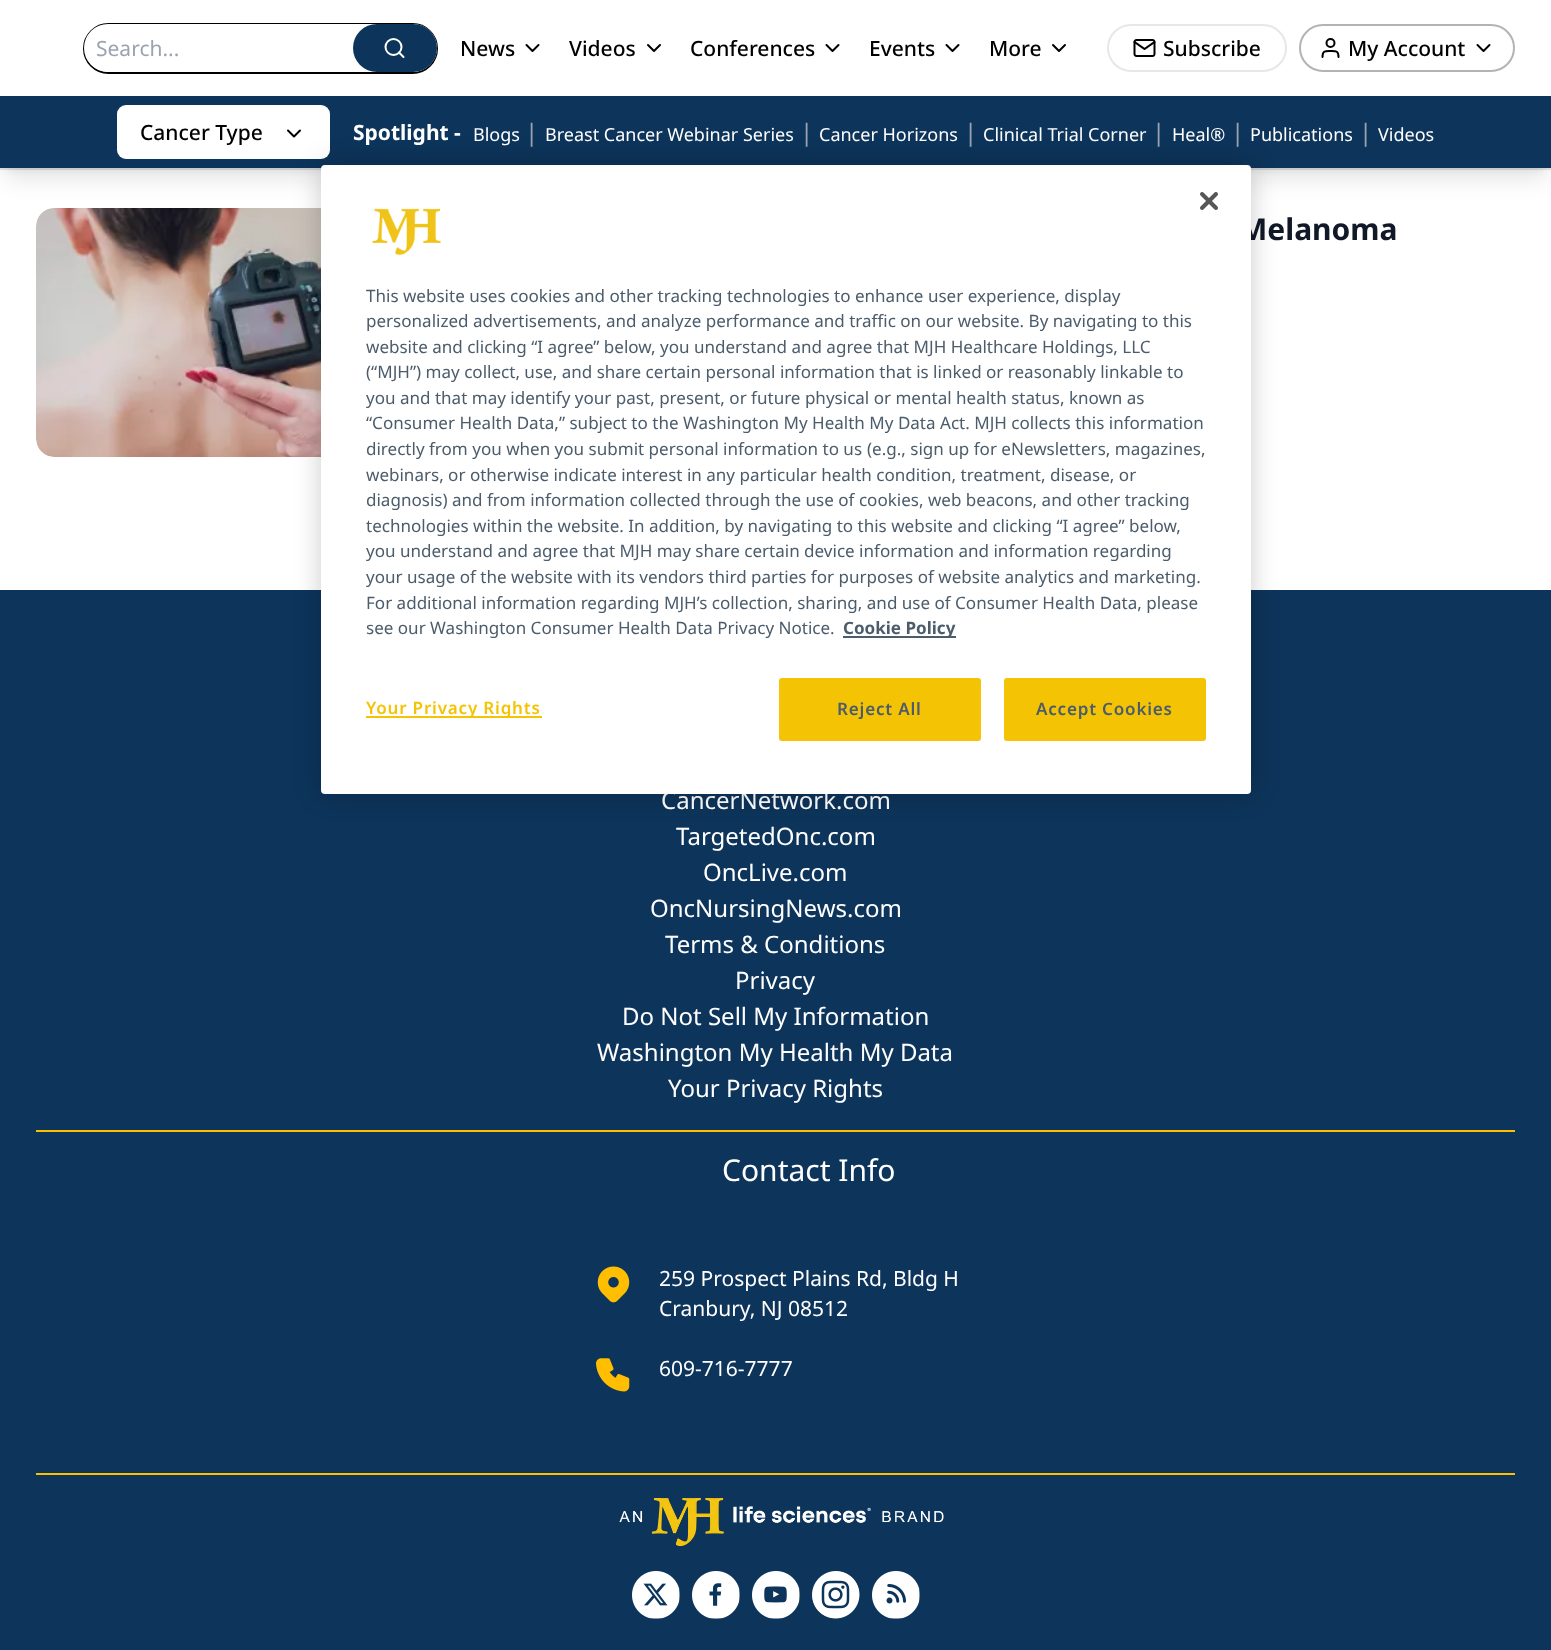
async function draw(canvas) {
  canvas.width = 1551
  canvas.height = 1650
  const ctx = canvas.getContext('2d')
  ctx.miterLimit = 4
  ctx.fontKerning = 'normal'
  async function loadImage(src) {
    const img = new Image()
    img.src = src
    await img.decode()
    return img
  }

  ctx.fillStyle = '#fff'
  ctx.fillRect(0, 0, 1551, 1650)
  ctx.fillStyle = '#e5e7eb'
  ctx.fillRect(0, 168, 1551, 2)
  ctx.beginPath()
  ctx.roundRect(84, 24, 353, 49, 24.5)
  ctx.strokeStyle = '#000'
  ctx.lineWidth = 2
  ctx.stroke()
  ctx.fillStyle = '#fff'
  ctx.beginPath()
  ctx.roundRect(84, 24, 353, 48, 24)
  ctx.fill()
  ctx.font = '21px Noto Sans'
  ctx.fillStyle = '#9ca3af'
  ctx.fillText('Search...', 96, 56)
  ctx.fillStyle = '#0d345a'
  ctx.beginPath()
  ctx.roundRect(353, 24, 84, 48, 24)
  ctx.fill()
  ctx.beginPath()
  ctx.arc(393.5, 47, 8, 0, 2 * Math.PI)
  ctx.strokeStyle = '#fff'
  ctx.stroke()
  ctx.beginPath()
  ctx.moveTo(403.5, 57)
  ctx.lineTo(399, 52.5)
  ctx.lineCap = 'round'
  ctx.lineJoin = 'round'
  ctx.stroke()
  ctx.font = '500 21px Noto Sans'
  ctx.fillStyle = '#000'
  ctx.fillText('News', 460, 56)
  ctx.beginPath()
  ctx.moveTo(526.5, 45)
  ctx.lineTo(532.5, 51)
  ctx.lineTo(538.5, 45)
  ctx.strokeStyle = '#000'
  ctx.stroke()
  ctx.fillText('Videos', 569, 56)
  ctx.beginPath()
  ctx.moveTo(648, 45)
  ctx.lineTo(654, 51)
  ctx.lineTo(660, 45)
  ctx.stroke()
  ctx.fillText('Conferences', 690, 56)
  ctx.beginPath()
  ctx.moveTo(826.5, 45)
  ctx.lineTo(832.5, 51)
  ctx.lineTo(838.5, 45)
  ctx.stroke()
  ctx.fillText('Events', 869, 56)
  ctx.beginPath()
  ctx.moveTo(946.5, 45)
  ctx.lineTo(952.5, 51)
  ctx.lineTo(958.5, 45)
  ctx.stroke()
  ctx.fillText('More', 989, 56)
  ctx.beginPath()
  ctx.moveTo(1053, 45)
  ctx.lineTo(1059, 51)
  ctx.lineTo(1065, 45)
  ctx.stroke()
  ctx.beginPath()
  ctx.roundRect(1108, 25, 178, 46, 23)
  ctx.strokeStyle = '#e5e7eb'
  ctx.lineJoin = 'miter'
  ctx.stroke()
  ctx.drawImage(await loadImage('image0.png'), 1133, 39, 23, 18)
  ctx.fillText('Subscribe', 1163, 56)
  ctx.beginPath()
  ctx.roundRect(1300, 25, 214, 46, 23)
  ctx.strokeStyle = '#b3b3b3'
  ctx.stroke()
  ctx.beginPath()
  ctx.moveTo(1338.5, 57)
  ctx.bezierCurveTo(1338.5, 50.5, 1336, 51, 1330.5, 51)
  ctx.bezierCurveTo(1325, 51, 1322.5, 50.5, 1322.5, 57)
  ctx.strokeStyle = '#000'
  ctx.lineJoin = 'round'
  ctx.stroke()
  ctx.beginPath()
  ctx.arc(1330.5, 43, 4, 0, 2 * Math.PI)
  ctx.stroke()
  ctx.fillText('My Account', 1348, 56)
  ctx.beginPath()
  ctx.moveTo(1477.5, 45)
  ctx.lineTo(1483.5, 51)
  ctx.lineTo(1489.5, 45)
  ctx.stroke()
  ctx.fillStyle = '#0000001a'
  ctx.filter = 'blur(4.5px)'
  ctx.beginPath()
  ctx.rect(6, 108, 1539, 60)
  ctx.fill()
  ctx.filter = 'none'
  ctx.drawImage(await loadImage('image1.png'), 36, 208, 285, 249)
  ctx.filter = 'blur(11px)'
  ctx.beginPath()
  ctx.rect(5, 116, 1542, 63)
  ctx.fill()
  ctx.filter = 'none'
  ctx.fillStyle = '#0d345a'
  ctx.fillRect(0, 96, 1551, 72)
  ctx.fillStyle = '#fff'
  ctx.beginPath()
  ctx.roundRect(117, 105, 213, 54, 9)
  ctx.fill()
  ctx.fillStyle = '#000'
  ctx.fillText('Cancer Type', 140, 140)
  ctx.beginPath()
  ctx.moveTo(288, 130.5)
  ctx.lineTo(294, 136.5)
  ctx.lineTo(300, 130.5)
  ctx.stroke()
  ctx.font = 'bold 21px Noto Sans'
  ctx.fillStyle = '#fff'
  ctx.fillText('Spotlight -', 353, 140)
  ctx.font = '18px Noto Sans'
  ctx.fillText('Blogs', 473, 141)
  ctx.font = '24px Noto Sans'
  ctx.fillStyle = '#9ca3af'
  ctx.fillText('|', 525, 141)
  ctx.font = '18px Noto Sans'
  ctx.fillStyle = '#fff'
  ctx.fillText('Breast Cancer Webinar Series', 545, 141)
  ctx.font = '24px Noto Sans'
  ctx.fillStyle = '#9ca3af'
  ctx.fillText('|', 800, 141)
  ctx.font = '18px Noto Sans'
  ctx.fillStyle = '#fff'
  ctx.fillText('Cancer Horizons', 819, 141)
  ctx.font = '24px Noto Sans'
  ctx.fillStyle = '#9ca3af'
  ctx.fillText('|', 964, 141)
  ctx.font = '18px Noto Sans'
  ctx.fillStyle = '#fff'
  ctx.fillText('Clinical Trial Corner', 983, 141)
  ctx.font = '24px Noto Sans'
  ctx.fillStyle = '#9ca3af'
  ctx.fillText('|', 1152, 141)
  ctx.font = '18px Noto Sans'
  ctx.fillStyle = '#fff'
  ctx.fillText('Heal®', 1172, 141)
  ctx.font = '24px Noto Sans'
  ctx.fillStyle = '#9ca3af'
  ctx.fillText('|', 1231, 141)
  ctx.font = '18px Noto Sans'
  ctx.fillStyle = '#fff'
  ctx.fillText('Publications', 1250, 141)
  ctx.font = '24px Noto Sans'
  ctx.fillStyle = '#9ca3af'
  ctx.fillText('|', 1359, 141)
  ctx.font = '18px Noto Sans'
  ctx.fillStyle = '#fff'
  ctx.fillText('Videos', 1378, 141)
  ctx.font = 'bold 30px Noto Sans'
  ctx.fillStyle = '#111827'
  ctx.fillText('Melanoma', 1239, 240)
  ctx.fillStyle = '#0d345a'
  ctx.fillRect(0, 590, 1551, 1060)
  ctx.font = '24px Noto Sans'
  ctx.fillStyle = '#fff'
  ctx.fillText('CancerNetwork.com', 661, 809)
  ctx.fillText('TargetedOnc.com', 676, 845)
  ctx.fillText('OncLive.com', 703, 881)
  ctx.fillText('OncNursingNews.com', 650, 917)
  ctx.fillText('Terms & Conditions', 665, 953)
  ctx.fillText('Privacy', 735, 989)
  ctx.fillText('Do Not Sell My Information', 622, 1025)
  ctx.fillText('Washington My Health My Data', 597, 1061)
  ctx.fillText('Your Privacy Rights', 668, 1097)
  ctx.fillStyle = '#ffbf00'
  ctx.fillRect(36, 1130, 1479, 2)
  ctx.fillRect(36, 1473, 1479, 2)
  ctx.font = '30px Noto Sans'
  ctx.fillStyle = '#fff'
  ctx.fillText('Contact Info', 722, 1181)
  ctx.drawImage(await loadImage('image2.png'), 597, 1266, 33, 37)
  ctx.font = '21px Noto Sans'
  ctx.fillText('259 Prospect Plains Rd, Bldg H', 659, 1286)
  ctx.fillText('Cranbury, NJ 08512', 659, 1316)
  ctx.drawImage(await loadImage('image3.png'), 596, 1358, 34, 34)
  ctx.fillText('609-716-7777', 659, 1376)
  ctx.drawImage(await loadImage('image4.png'), 619, 1498, 325, 48)
  ctx.drawImage(await loadImage('image5.png'), 632, 1571, 48, 48)
  ctx.drawImage(await loadImage('image6.png'), 692, 1571, 48, 48)
  ctx.drawImage(await loadImage('image7.png'), 752, 1571, 48, 48)
  ctx.drawImage(await loadImage('image8.png'), 812, 1571, 48, 48)
  ctx.drawImage(await loadImage('image9.png'), 872, 1571, 48, 48)
  ctx.fillStyle = '#00000033'
  ctx.filter = 'blur(13.5px)'
  ctx.beginPath()
  ctx.roundRect(321, 165, 930, 629, 4)
  ctx.fill()
  ctx.filter = 'none'
  ctx.fillStyle = '#fff'
  ctx.beginPath()
  ctx.roundRect(321, 165, 930, 629, 4)
  ctx.fill()
  ctx.drawImage(await loadImage('image10.png'), 1200, 192, 18, 18)
  ctx.drawImage(await loadImage('image11.png'), 372, 208, 69, 48)
  ctx.font = '17.05px Noto Sans'
  ctx.fillStyle = '#4c5c6b'
  ctx.fillText('This website uses cookies and other tracking technologies to enhance user experience, display', 366, 302)
  ctx.fillText('personalized advertisements, and analyze performance and traffic on our website. By navigating to this', 366, 327)
  ctx.fillText('website and clicking “I agree” below, you understand and agree that MJH Healthcare Holdings, LLC', 366, 353)
  ctx.fillText('(“MJH”) may collect, use, and share certain personal information that is linked or reasonably linkable to', 366, 378)
  ctx.fillText('you and that may identify your past, present, or future physical or mental health status, known as', 366, 404)
  ctx.fillText('“Consumer Health Data,” subject to the Washington My Health My Data Act. MJH collects this information', 366, 429)
  ctx.fillText('directly from you when you submit personal information to us', 366, 455)
  ctx.fillText('(e.g., sign up for eNewsletters, magazines,', 867, 455)
  ctx.fillText('webinars, or otherwise indicate interest in any particular health condition, treatment, disease, or', 366, 481)
  ctx.fillText('diagnosis) and from information collected through the use of cookies, web beacons, and other tracking', 366, 506)
  ctx.fillText('technologies within the website. In addition, by navigating to this website and clicking “I agree” below,', 366, 532)
  ctx.fillText('you understand and agree that MJH may share certain device information and information regarding', 366, 557)
  ctx.fillText('your usage of the website with its vendors third parties for purposes of website analytics and marketing.', 366, 583)
  ctx.fillText('For additional information regarding MJH’s collection, sharing, and use of Consumer Health Data, please', 366, 609)
  ctx.fillText('see our Washington Consumer Health Data Privacy Notice.', 366, 634)
  ctx.fillRect(843, 636, 113, 2)
  ctx.font = 'bold 17.05px Noto Sans'
  ctx.fillText('Cookie Policy', 843, 634)
  ctx.fillStyle = '#f4c404'
  ctx.fillRect(366, 716, 176, 2)
  ctx.letterSpacing = '0.8px'
  ctx.font = '600 17.05px Noto Sans'
  ctx.fillText('Your Privacy Rights', 366, 714)
  ctx.beginPath()
  ctx.roundRect(780, 679, 200, 61, 2)
  ctx.fill()
  ctx.strokeStyle = '#f4c404'
  ctx.lineJoin = 'miter'
  ctx.stroke()
  ctx.fillStyle = '#4c5c6b'
  ctx.fillText('Reject All', 837, 715)
  ctx.fillStyle = '#f4c404'
  ctx.beginPath()
  ctx.roundRect(1005, 679, 200, 61, 2)
  ctx.fill()
  ctx.stroke()
  ctx.fillStyle = '#4c5c6b'
  ctx.fillText('Accept Cookies', 1036, 715)
}

draw(document.querySelector('canvas'))
